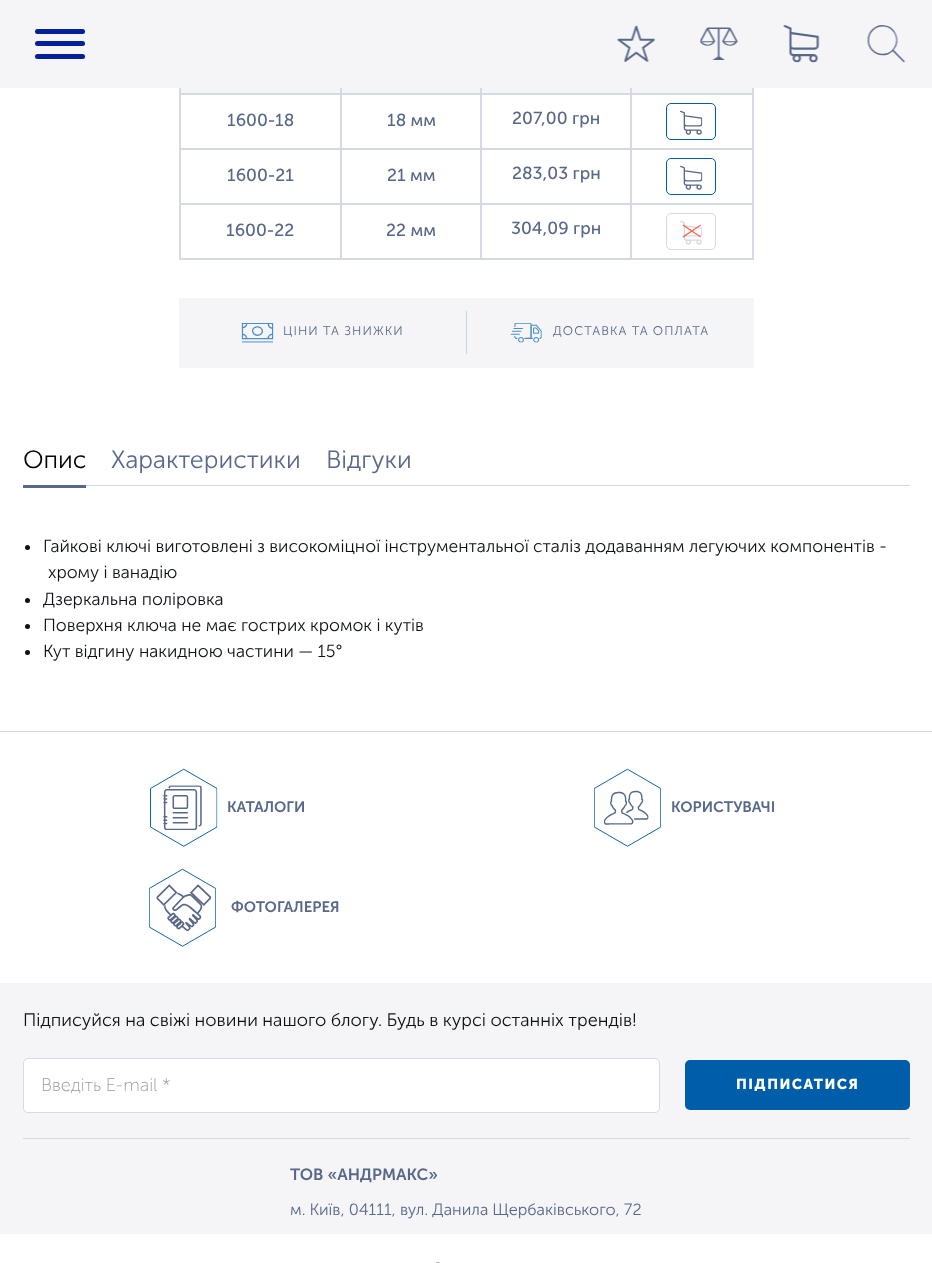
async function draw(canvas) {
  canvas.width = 932
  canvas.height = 1263
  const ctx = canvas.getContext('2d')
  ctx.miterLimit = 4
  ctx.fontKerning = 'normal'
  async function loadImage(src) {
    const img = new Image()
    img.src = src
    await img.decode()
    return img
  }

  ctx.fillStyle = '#fff'
  ctx.fillRect(0, 0, 932, 1263)
  ctx.strokeStyle = '#d5d9e1'
  ctx.strokeRect(179.5, -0.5, 574, 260)
  ctx.fillStyle = '#f5f5f8'
  ctx.fillRect(181, 88, 571, 5)
  ctx.strokeRect(180.5, 39.5, 160, 54)
  ctx.strokeRect(341.5, 39.5, 139, 54)
  ctx.strokeRect(481.5, 39.5, 149, 54)
  ctx.strokeRect(631.5, 39.5, 121, 54)
  ctx.fillRect(0, 0, 932, 88)
  ctx.fillStyle = '#002199'
  ctx.beginPath()
  ctx.roundRect(35, 41, 50, 5, 2.5)
  ctx.fill()
  ctx.beginPath()
  ctx.roundRect(35, 29, 50, 5, 2.5)
  ctx.fill()
  ctx.beginPath()
  ctx.roundRect(35, 54, 50, 5, 2.5)
  ctx.fill()
  ctx.drawImage(await loadImage('image0.png'), 617, 25, 39, 37)
  ctx.drawImage(await loadImage('image1.png'), 699, 27, 39, 33)
  ctx.drawImage(await loadImage('image2.png'), 783, 25, 37, 38)
  ctx.drawImage(await loadImage('image3.png'), 867, 25, 39, 38)
  ctx.strokeRect(180.5, 94.5, 160, 54)
  ctx.font = '17.5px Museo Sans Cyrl'
  ctx.fillStyle = '#586889'
  ctx.fillText('1600-18', 227, 126)
  ctx.strokeRect(341.5, 94.5, 139, 54)
  ctx.fillText('18 мм', 387, 126)
  ctx.strokeRect(481.5, 94.5, 149, 54)
  ctx.fillText('207,00 грн', 512, 124)
  ctx.strokeRect(631.5, 94.5, 121, 54)
  ctx.beginPath()
  ctx.roundRect(666.5, 103.5, 49, 36, 4.5)
  ctx.strokeStyle = '#005da9'
  ctx.stroke()
  ctx.drawImage(await loadImage('image4.png'), 680, 110, 23, 25)
  ctx.strokeStyle = '#d5d9e1'
  ctx.strokeRect(180.5, 149.5, 160, 54)
  ctx.fillText('1600-21', 227, 181)
  ctx.strokeRect(341.5, 149.5, 139, 54)
  ctx.fillText('21 мм', 387, 181)
  ctx.strokeRect(481.5, 149.5, 149, 54)
  ctx.fillText('283,03 грн', 512, 179)
  ctx.strokeRect(631.5, 149.5, 121, 54)
  ctx.beginPath()
  ctx.roundRect(666.5, 158.5, 49, 36, 4.5)
  ctx.strokeStyle = '#005da9'
  ctx.stroke()
  ctx.drawImage(await loadImage('image4.png'), 680, 165, 23, 25)
  ctx.strokeStyle = '#d5d9e1'
  ctx.strokeRect(180.5, 204.5, 160, 54)
  ctx.fillText('1600-22', 226, 236)
  ctx.strokeRect(341.5, 204.5, 139, 54)
  ctx.fillText('22 мм', 386, 236)
  ctx.strokeRect(481.5, 204.5, 149, 54)
  ctx.fillText('304,09 грн', 511, 234)
  ctx.strokeRect(631.5, 204.5, 121, 54)
  ctx.beginPath()
  ctx.roundRect(666.5, 213.5, 49, 36, 4.5)
  ctx.stroke()
  ctx.drawImage(await loadImage('image5.png'), 680, 220, 23, 25)
  ctx.fillStyle = '#ff6347'
  ctx.beginPath()
  ctx.moveTo(683.5, 224.5)
  ctx.lineTo(701, 236.5)
  ctx.lineTo(700.5, 237.5)
  ctx.lineTo(682.5, 225.5)
  ctx.closePath()
  ctx.fill()
  ctx.beginPath()
  ctx.moveTo(682.5, 236.5)
  ctx.lineTo(700.5, 224.5)
  ctx.lineTo(701, 225.5)
  ctx.lineTo(683.5, 237.5)
  ctx.closePath()
  ctx.fill()
  ctx.fillStyle = '#f5f5f8'
  ctx.fillRect(179, 298, 575, 70)
  ctx.drawImage(await loadImage('image6.png'), 241, 323, 33, 20)
  ctx.letterSpacing = '1.1px'
  ctx.font = '300 12.5px Museo Sans Cyrl'
  ctx.fillStyle = '#586889'
  ctx.fillText('ЦІНИ ТА ЗНИЖКИ', 283, 335)
  ctx.fillStyle = '#c6d4e6'
  ctx.fillRect(466, 311, 1, 43)
  ctx.drawImage(await loadImage('image7.png'), 510, 323, 32, 20)
  ctx.fillStyle = '#586889'
  ctx.fillText('ДОСТАВКА ТА ОПЛАТА', 553, 335)
  ctx.fillStyle = '#d4d8e6'
  ctx.fillRect(86, 485, 824, 1)
  ctx.letterSpacing = '0px'
  ctx.font = '300 25px Museo Sans Cyrl'
  ctx.fillStyle = '#000'
  ctx.fillText('Опис', 23, 468)
  ctx.fillStyle = '#586889'
  ctx.fillRect(23, 485, 63, 3)
  ctx.fillText('Характеристики', 111, 468)
  ctx.fillText('Відгуки', 326, 468)
  ctx.fillStyle = '#0d1017'
  ctx.beginPath()
  ctx.arc(27.5, 547.5, 2.5, 0, 2 * Math.PI)
  ctx.fill()
  ctx.font = '300 17.5px Museo Sans Cyrl'
  ctx.fillText('Гайкові ключі виготовлені з високоміцної інструментальної сталіз додаванням легуючих компонентів -', 43, 552)
  ctx.fillText('хрому і ванадію', 48, 578)
  ctx.beginPath()
  ctx.arc(27.5, 600.5, 2.5, 0, 2 * Math.PI)
  ctx.fill()
  ctx.fillText('Дзеркальна поліровка', 43, 605)
  ctx.beginPath()
  ctx.arc(27.5, 626.5, 2.5, 0, 2 * Math.PI)
  ctx.fill()
  ctx.fillText('Поверхня ключа не має гострих кромок і кутів', 43, 631)
  ctx.beginPath()
  ctx.arc(27.5, 652.5, 2.5, 0, 2 * Math.PI)
  ctx.fill()
  ctx.fillText('Кут відгину накидною частини — 15°', 43, 657)
  ctx.fillStyle = '#d4d8e6'
  ctx.fillRect(0, 731, 932, 1)
  ctx.drawImage(await loadImage('image8.png'), 150, 768, 68, 79)
  ctx.drawImage(await loadImage('image9.png'), 163, 785, 39, 45)
  ctx.font = '600 15px Museo Sans Cyrl'
  ctx.fillStyle = '#586889'
  ctx.fillText('КАТАЛОГИ', 227, 812)
  ctx.drawImage(await loadImage('image10.png'), 594, 768, 67, 79)
  ctx.drawImage(await loadImage('image11.png'), 604, 790, 45, 35)
  ctx.fillText('КОРИСТУВАЧІ', 671, 812)
  ctx.drawImage(await loadImage('image10.png'), 149, 868, 67, 79)
  ctx.drawImage(await loadImage('image12.png'), 156, 884, 56, 47)
  ctx.fillText('ФОТОГАЛЕРЕЯ', 231, 912)
  ctx.fillStyle = '#f5f5f8'
  ctx.fillRect(0, 983, 932, 251)
  ctx.fillStyle = '#d5d9e1'
  ctx.fillRect(23, 1138, 887, 1)
  ctx.font = '300 18.1px Museo Sans Cyrl'
  ctx.fillStyle = '#0d1017'
  ctx.fillText('Підписуйся на свіжі новини нашого блогу. Будь в курсі останніх трендів!', 23, 1026)
  ctx.fillStyle = '#fff'
  ctx.beginPath()
  ctx.roundRect(23.5, 1058.5, 636, 54, 4.5)
  ctx.fill()
  ctx.stroke()
  ctx.font = '200 18.1px Museo Sans Cyrl'
  ctx.fillStyle = '#999'
  ctx.fillText('Введіть E-mail *', 41, 1091)
  ctx.fillStyle = '#005da9'
  ctx.beginPath()
  ctx.roundRect(685, 1060, 225, 50, 5)
  ctx.fill()
  ctx.letterSpacing = '1.5px'
  ctx.font = 'bold 14.4px Museo Sans Cyrl'
  ctx.fillStyle = '#fff'
  ctx.fillText('ПІДПИСАТИСЯ', 736, 1089)
  ctx.letterSpacing = '0px'
  ctx.font = '600 16.25px Museo Sans Cyrl'
  ctx.fillStyle = '#586889'
  ctx.fillText('ТОВ «АНДРМАКС»', 290, 1180)
  ctx.font = '300 16.25px Museo Sans Cyrl'
  ctx.fillText('м. Київ, 04111, вул. Данила Щербаківського, 72', 290, 1215)
  ctx.letterSpacing = '1px'
  ctx.font = '300 12.5px Museo Sans Cyrl'
  ctx.fillStyle = '#98a4ae'
  ctx.fillText('-', 435, 1266)
}

draw(document.querySelector('canvas'))
